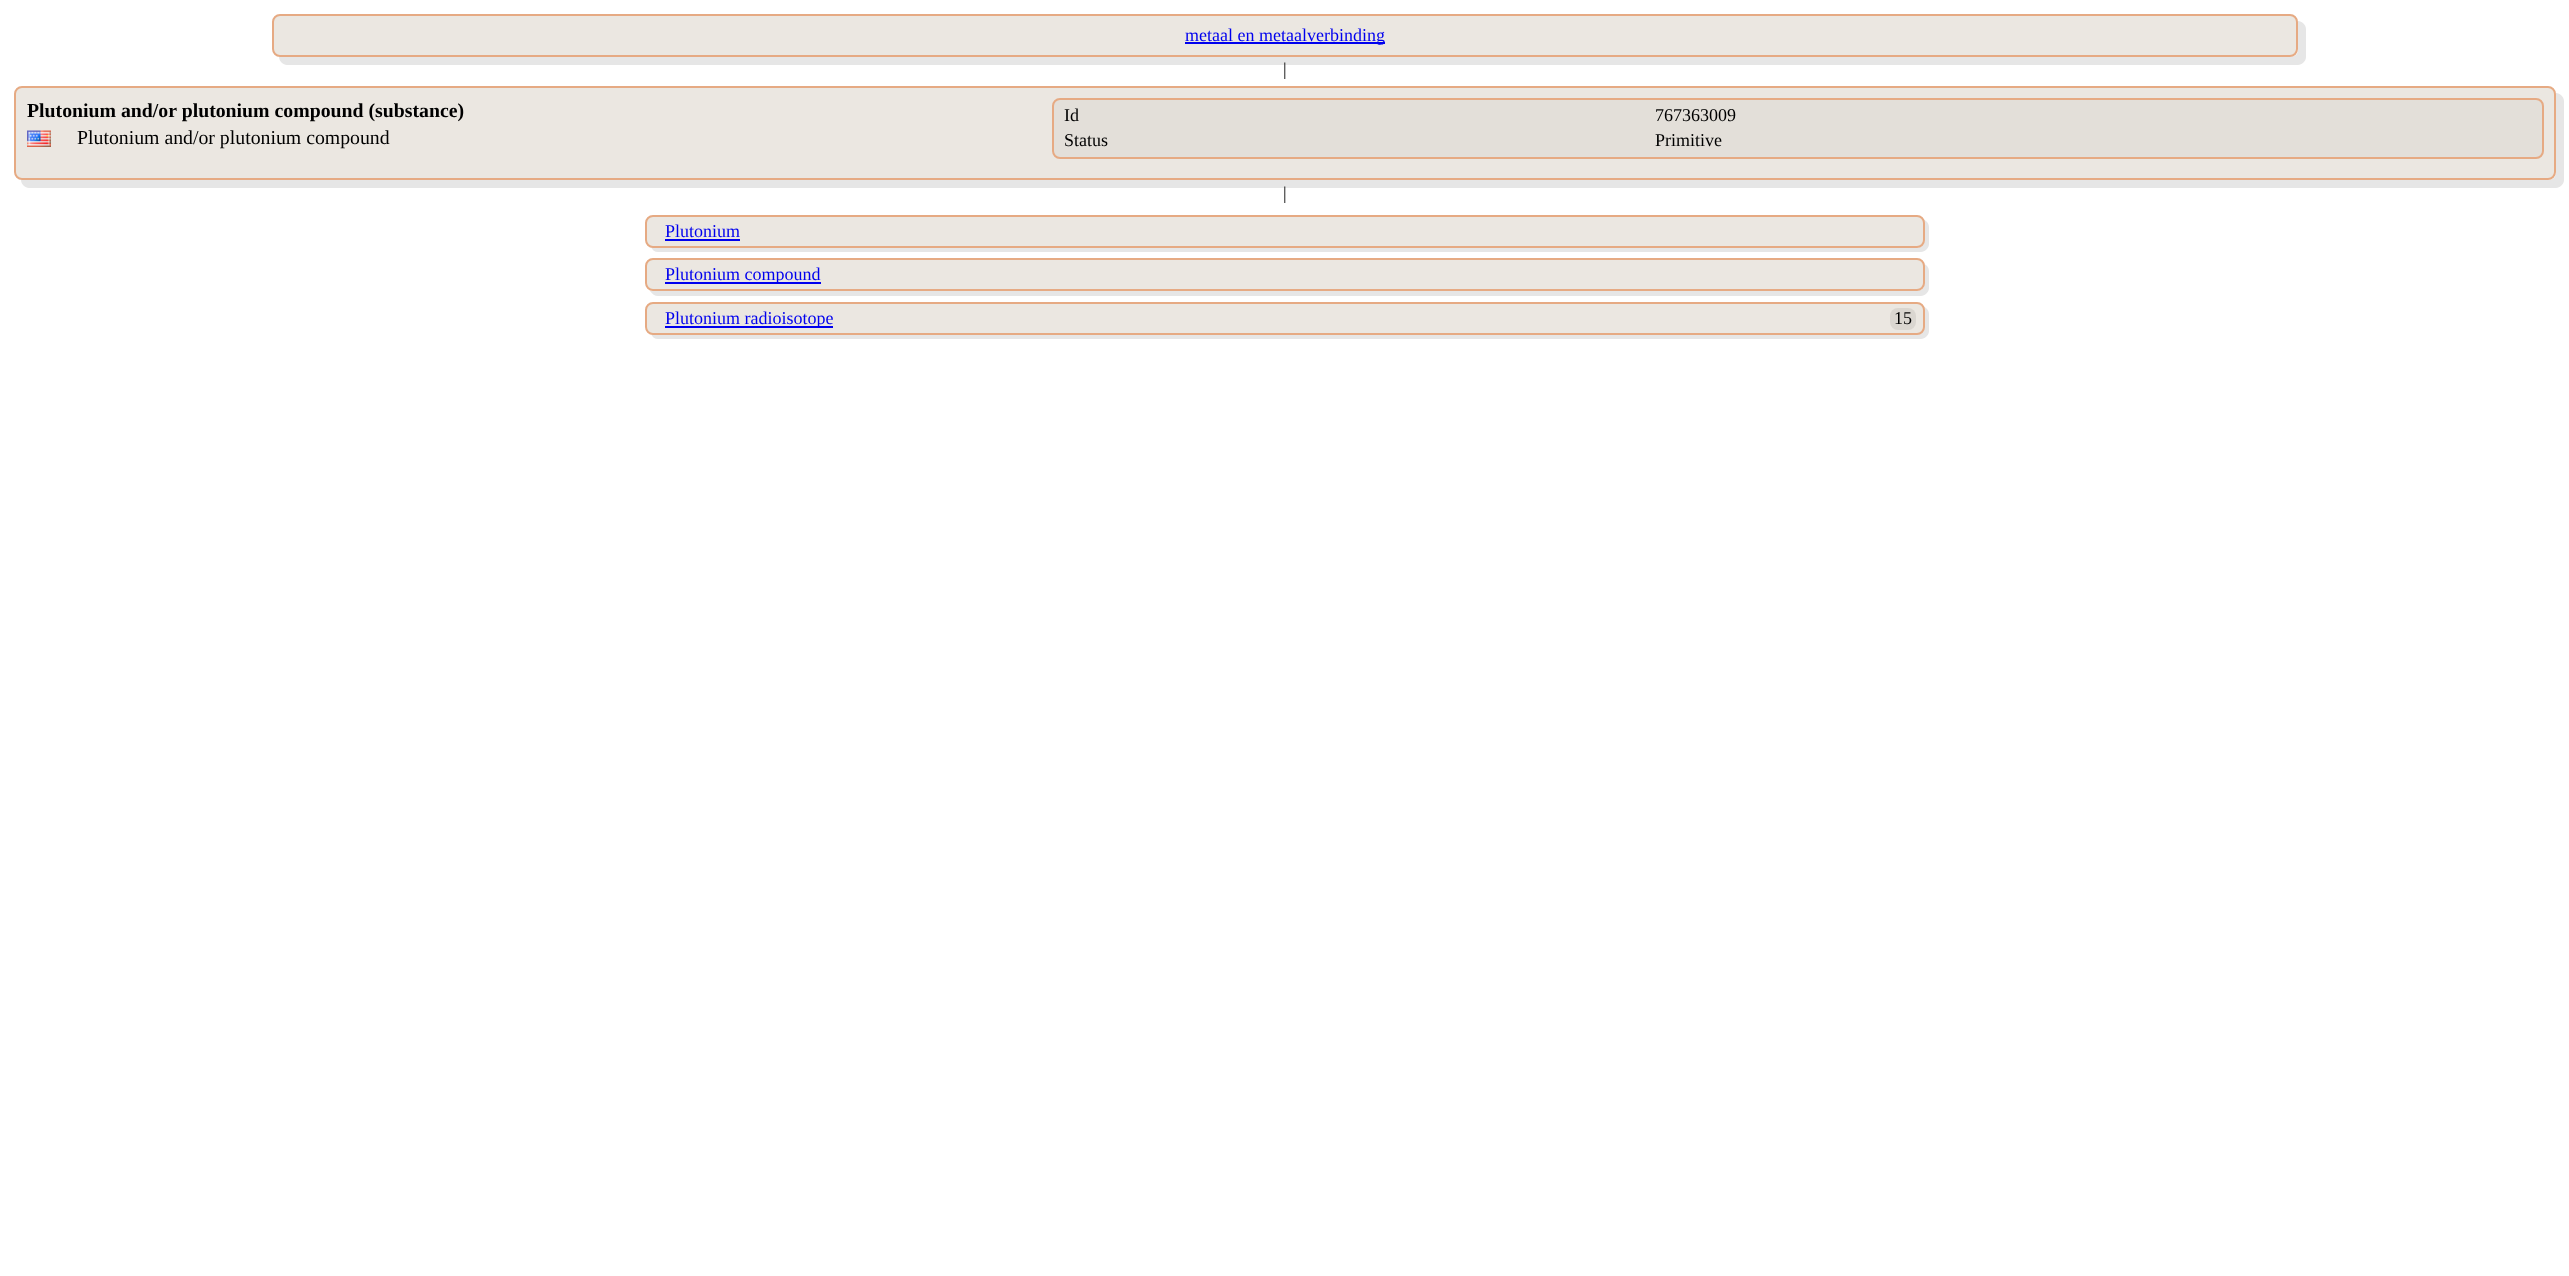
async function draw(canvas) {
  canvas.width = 2569
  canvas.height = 1276
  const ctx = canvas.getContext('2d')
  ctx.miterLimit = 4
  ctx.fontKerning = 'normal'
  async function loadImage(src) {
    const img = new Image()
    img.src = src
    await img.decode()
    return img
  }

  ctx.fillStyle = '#fff'
  ctx.fillRect(0, 0, 2569, 1276)
  ctx.fillStyle = '#e6e6e6'
  ctx.beginPath()
  ctx.moveTo(279, 57)
  ctx.bezierCurveTo(279, 61, 283, 65, 287, 65)
  ctx.lineTo(2298, 65)
  ctx.bezierCurveTo(2302, 65, 2306, 61, 2306, 57)
  ctx.lineTo(2306, 29)
  ctx.bezierCurveTo(2306, 25, 2302, 21, 2298, 21)
  ctx.lineTo(2298, 50)
  ctx.bezierCurveTo(2298, 54, 2295, 57, 2290, 57)
  ctx.closePath()
  ctx.fill()
  ctx.fillStyle = '#ebe7e1'
  ctx.beginPath()
  ctx.roundRect(273, 15, 2024, 41, 7)
  ctx.fill()
  ctx.strokeStyle = '#e6aa83'
  ctx.lineWidth = 2
  ctx.stroke()
  ctx.fillStyle = '#00e'
  ctx.fillRect(1185, 42, 200, 2)
  ctx.font = '18px Liberation Serif'
  ctx.fillText('metaal en metaalverbinding', 1185, 41)
  ctx.fillStyle = '#000'
  ctx.fillText('|', 1283, 75)
  ctx.fillStyle = '#e6e6e6'
  ctx.beginPath()
  ctx.moveTo(21, 180)
  ctx.bezierCurveTo(21, 184, 25, 188, 29, 188)
  ctx.lineTo(2556, 188)
  ctx.bezierCurveTo(2560, 188, 2564, 184, 2564, 180)
  ctx.lineTo(2564, 101)
  ctx.bezierCurveTo(2564, 97, 2560, 93, 2556, 93)
  ctx.lineTo(2556, 172)
  ctx.bezierCurveTo(2556, 177, 2553, 180, 2548, 180)
  ctx.closePath()
  ctx.fill()
  ctx.fillStyle = '#ebe7e1'
  ctx.beginPath()
  ctx.roundRect(15, 87, 2540, 92, 7)
  ctx.fill()
  ctx.stroke()
  ctx.font = 'bold 19.8px Liberation Serif'
  ctx.fillStyle = '#000'
  ctx.fillText('Plutonium and/or plutonium compound (substance)', 27, 117)
  ctx.drawImage(await loadImage('image0.png'), 27, 130, 24, 17)
  ctx.font = '19.8px Liberation Serif'
  ctx.fillText('Plutonium and/or plutonium compound', 77, 144)
  ctx.fillStyle = '#e3dfd9'
  ctx.beginPath()
  ctx.roundRect(1053, 99, 1490, 59, 7)
  ctx.fill()
  ctx.stroke()
  ctx.font = '18px Liberation Serif'
  ctx.fillStyle = '#000'
  ctx.fillText('Id', 1064, 121)
  ctx.fillText('767363009', 1655, 121)
  ctx.fillText('Status', 1064, 146)
  ctx.fillText('Primitive', 1655, 146)
  ctx.fillText('|', 1283, 199)
  ctx.fillStyle = '#e6e6e6'
  ctx.beginPath()
  ctx.moveTo(651, 247)
  ctx.bezierCurveTo(652, 250, 655, 252, 658, 252)
  ctx.lineTo(1921, 252)
  ctx.bezierCurveTo(1925, 252, 1929, 248, 1929, 244)
  ctx.lineTo(1929, 227)
  ctx.bezierCurveTo(1929, 224, 1927, 221, 1924, 220)
  ctx.lineTo(1924, 231)
  ctx.bezierCurveTo(1924, 237, 1926, 247, 1917, 248)
  ctx.closePath()
  ctx.fill()
  ctx.fillStyle = '#ebe7e1'
  ctx.beginPath()
  ctx.roundRect(646, 216, 1278, 31, 7)
  ctx.fill()
  ctx.stroke()
  ctx.fillStyle = '#00e'
  ctx.fillText('Plutonium', 665, 237)
  ctx.fillRect(665, 239, 75, 2)
  ctx.fillStyle = '#e6e6e6'
  ctx.beginPath()
  ctx.moveTo(650, 291)
  ctx.bezierCurveTo(652, 294, 655, 296, 658, 296)
  ctx.lineTo(1921, 296)
  ctx.bezierCurveTo(1925, 296, 1929, 292, 1929, 288)
  ctx.lineTo(1929, 271)
  ctx.bezierCurveTo(1929, 268, 1927, 265, 1924, 264)
  ctx.lineTo(1924, 285)
  ctx.bezierCurveTo(1924, 287, 1923, 289, 1921, 290)
  ctx.lineTo(1917, 291)
  ctx.closePath()
  ctx.fill()
  ctx.fillStyle = '#ebe7e1'
  ctx.beginPath()
  ctx.roundRect(646, 259, 1278, 31, 7)
  ctx.fill()
  ctx.stroke()
  ctx.fillStyle = '#00e'
  ctx.fillRect(665, 282, 156, 2)
  ctx.fillText('Plutonium compound', 665, 280)
  ctx.fillStyle = '#e6e6e6'
  ctx.beginPath()
  ctx.moveTo(651, 334)
  ctx.bezierCurveTo(652, 337, 655, 339, 658, 339)
  ctx.lineTo(1921, 339)
  ctx.bezierCurveTo(1925, 339, 1929, 335, 1929, 331)
  ctx.lineTo(1929, 314)
  ctx.bezierCurveTo(1929, 311, 1927, 308, 1924, 307)
  ctx.lineTo(1924, 318)
  ctx.bezierCurveTo(1924, 324, 1926, 334, 1917, 334)
  ctx.closePath()
  ctx.fill()
  ctx.fillStyle = '#ebe7e1'
  ctx.beginPath()
  ctx.roundRect(646, 303, 1278, 31, 7)
  ctx.fill()
  ctx.stroke()
  ctx.fillStyle = '#00e'
  ctx.fillRect(665, 326, 168, 2)
  ctx.fillText('Plutonium radioisotope', 665, 324)
  ctx.fillStyle = '#dad6d0'
  ctx.beginPath()
  ctx.roundRect(1890, 308, 26, 22, 8)
  ctx.fill()
  ctx.fillStyle = '#000'
  ctx.fillText('15', 1894, 324)
}

draw(document.querySelector('canvas'))
